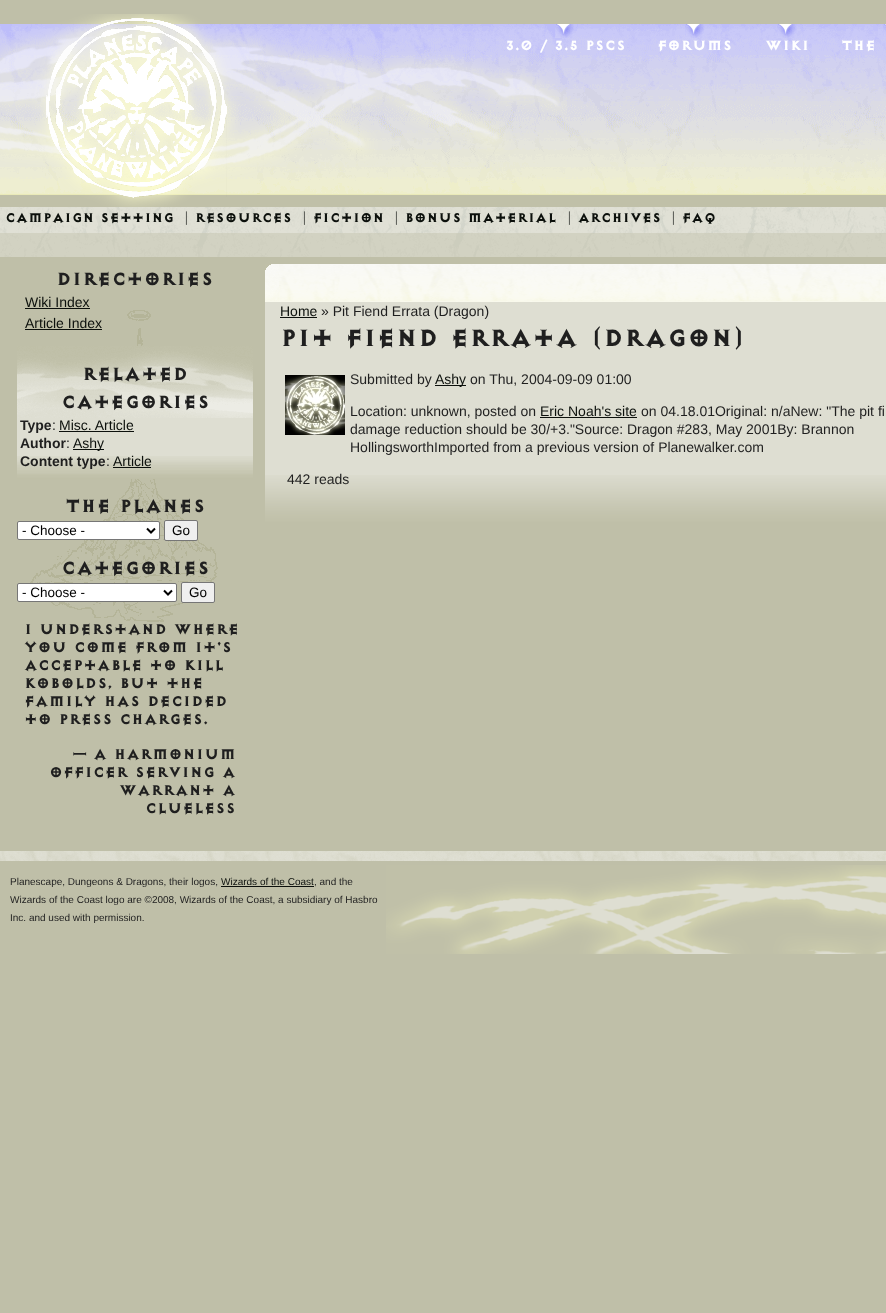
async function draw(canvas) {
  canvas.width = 886
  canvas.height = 1313
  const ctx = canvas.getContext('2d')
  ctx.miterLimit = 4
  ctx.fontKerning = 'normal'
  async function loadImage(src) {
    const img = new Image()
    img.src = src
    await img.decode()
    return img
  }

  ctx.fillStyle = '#bfbfa8'
  ctx.fillRect(0, 0, 886, 1313)
  ctx.drawImage(await loadImage('image0.png'), 0, 24, 886, 233)
  ctx.drawImage(await loadImage('image1.png'), 0, 14, 567, 193)
  ctx.drawImage(await loadImage('image2.png'), 555, 24, 19, 14)
  ctx.font = '900 16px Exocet'
  ctx.fillStyle = '#fff'
  ctx.fillText('3.0 / 3.5 PSCS', 505, 50)
  ctx.drawImage(await loadImage('image2.png'), 685, 24, 19, 14)
  ctx.fillText('Forums', 657, 50)
  ctx.drawImage(await loadImage('image3.png'), 777, 24, 20, 14)
  ctx.fillText('Wiki', 765, 50)
  ctx.drawImage(await loadImage('image4.png'), 883, 24, 3, 14)
  ctx.fillText('The', 841, 50)
  ctx.font = '900 15px Exocet'
  ctx.fillStyle = '#0c100c'
  ctx.fillText('Campaign Setting', 5, 222)
  ctx.fillText('| Resources', 184, 222)
  ctx.fillText('| Fiction', 302, 222)
  ctx.fillText('| Bonus Material', 394, 222)
  ctx.fillText('| Archives', 567, 222)
  ctx.fillText('| FAQ', 671, 222)
  ctx.drawImage(await loadImage('image5.png'), 29, 310, 189, 312)
  ctx.font = '900 21px Exocet'
  ctx.fillStyle = '#1f1f1f'
  ctx.fillText('Directories', 56, 285)
  ctx.font = '14px Liberation Sans'
  ctx.fillStyle = '#0c100c'
  ctx.fillText('Wiki Index', 25, 307)
  ctx.fillRect(25, 308, 65, 1)
  ctx.fillText('Article Index', 25, 328)
  ctx.fillRect(25, 329, 77, 1)
  ctx.fillStyle = '#deded2'
  ctx.fillRect(17, 418, 236, 38)
  ctx.drawImage(await loadImage('image6.png'), 17, 346, 236, 72)
  ctx.drawImage(await loadImage('image7.png'), 17, 456, 236, 23)
  ctx.font = '900 21px Exocet'
  ctx.fillStyle = '#1f1f1f'
  ctx.fillText('Related', 82, 380)
  ctx.fillText('categories', 61, 408)
  ctx.font = 'bold 14px Liberation Sans'
  ctx.fillText('Type', 20, 430)
  ctx.font = '14px Liberation Sans'
  ctx.fillText(':', 52, 430)
  ctx.fillStyle = '#0c100c'
  ctx.fillText('Misc. Article', 59, 430)
  ctx.fillRect(59, 431, 75, 1)
  ctx.font = 'bold 14px Liberation Sans'
  ctx.fillStyle = '#1f1f1f'
  ctx.fillText('Author', 20, 448)
  ctx.font = '14px Liberation Sans'
  ctx.fillText(':', 66, 448)
  ctx.fillStyle = '#0c100c'
  ctx.fillRect(73, 449, 31, 1)
  ctx.fillText('Ashy', 73, 448)
  ctx.font = 'bold 14px Liberation Sans'
  ctx.fillStyle = '#1f1f1f'
  ctx.fillText('Content type', 20, 466)
  ctx.font = '14px Liberation Sans'
  ctx.fillText(':', 106, 466)
  ctx.fillStyle = '#0c100c'
  ctx.fillText('Article', 113, 466)
  ctx.fillRect(113, 467, 38, 1)
  ctx.font = '900 21px Exocet'
  ctx.fillStyle = '#1f1f1f'
  ctx.fillText('The Planes', 65, 512)
  ctx.fillStyle = '#fff'
  ctx.beginPath()
  ctx.roundRect(17.5, 521.5, 142, 18, 1.5)
  ctx.fill()
  ctx.strokeStyle = '#767676'
  ctx.stroke()
  ctx.beginPath()
  ctx.moveTo(147, 528.5)
  ctx.lineTo(151, 532.5)
  ctx.lineTo(155, 528.5)
  ctx.strokeStyle = '#000'
  ctx.lineWidth = 2
  ctx.stroke()
  ctx.font = '13.5px Liberation Sans'
  ctx.fillStyle = '#000'
  ctx.fillText('- Choose -', 22, 535)
  ctx.fillStyle = '#efefef'
  ctx.beginPath()
  ctx.roundRect(164.5, 520.5, 33, 20, 1.5)
  ctx.fill()
  ctx.strokeStyle = '#767676'
  ctx.lineWidth = 1
  ctx.stroke()
  ctx.fillStyle = '#000'
  ctx.fillText('Go', 172, 535)
  ctx.font = '900 21px Exocet'
  ctx.fillStyle = '#1f1f1f'
  ctx.fillText('Categories', 61, 574)
  ctx.fillStyle = '#fff'
  ctx.beginPath()
  ctx.roundRect(17.5, 583.5, 159, 18, 1.5)
  ctx.fill()
  ctx.stroke()
  ctx.beginPath()
  ctx.moveTo(164, 590.5)
  ctx.lineTo(168, 594.5)
  ctx.lineTo(172, 590.5)
  ctx.strokeStyle = '#000'
  ctx.lineWidth = 2
  ctx.stroke()
  ctx.font = '13.5px Liberation Sans'
  ctx.fillStyle = '#000'
  ctx.fillText('- Choose -', 22, 597)
  ctx.fillStyle = '#efefef'
  ctx.beginPath()
  ctx.roundRect(181.5, 582.5, 33, 20, 1.5)
  ctx.fill()
  ctx.strokeStyle = '#767676'
  ctx.lineWidth = 1
  ctx.stroke()
  ctx.fillStyle = '#000'
  ctx.fillText('Go', 189, 597)
  ctx.font = '900 16.75px Exocet'
  ctx.fillStyle = '#1f1f1f'
  ctx.fillText('I understand where', 24, 634)
  ctx.fillText('you come from it\'s', 24, 652)
  ctx.fillText('acceptable to kill', 24, 670)
  ctx.fillText('kobolds, but the', 24, 688)
  ctx.fillText('family has decided', 24, 706)
  ctx.fillText('to press charges.', 24, 724)
  ctx.fillText('— A Harmonium', 73, 759)
  ctx.fillText('Officer serving a', 49, 777)
  ctx.fillText('warrant a', 119, 795)
  ctx.fillText('Clueless', 145, 813)
  ctx.fillStyle = '#deded2'
  ctx.fillRect(265, 302, 621, 173)
  ctx.drawImage(await loadImage('image8.png'), 265, 264, 621, 38)
  ctx.drawImage(await loadImage('image9.png'), 265, 475, 621, 47)
  ctx.drawImage(await loadImage('image10.png'), 265, 264, 14, 37)
  ctx.font = '14px Liberation Sans'
  ctx.fillStyle = '#0c100c'
  ctx.fillText('Home', 280, 316)
  ctx.fillRect(280, 317, 37, 1)
  ctx.fillStyle = '#1f1f1f'
  ctx.fillText('» Pit Fiend Errata (Dragon)', 321, 316)
  ctx.font = '900 28px Exocet'
  ctx.fillText('Pit Fiend Errata (Dragon)', 280, 346)
  ctx.drawImage(await loadImage('image11.png'), 285, 375, 60, 60)
  ctx.font = '14px Liberation Sans'
  ctx.fillText('Submitted by', 350, 384)
  ctx.fillStyle = '#0c100c'
  ctx.fillRect(435, 385, 31, 1)
  ctx.fillText('Ashy', 435, 384)
  ctx.fillStyle = '#1f1f1f'
  ctx.fillText('on Thu, 2004-09-09 01:00', 470, 384)
  ctx.fillText('Location: unknown, posted on', 350, 416)
  ctx.fillStyle = '#0c100c'
  ctx.fillText('Eric Noah\'s site', 540, 416)
  ctx.fillRect(540, 417, 97, 1)
  ctx.fillStyle = '#1f1f1f'
  ctx.fillText('on 04.18.01Original: n/aNew: "The pit fi', 641, 416)
  ctx.fillText('damage reduction should be 30/+3."Source: Dragon #283, May 2001By: Brannon', 350, 434)
  ctx.fillText('HollingsworthImported from a previous version of Planewalker.com', 350, 452)
  ctx.fillText('442 reads', 287, 484)
  ctx.drawImage(await loadImage('image12.png'), 0, 851, 886, 10)
  ctx.drawImage(await loadImage('image13.png'), 386, 865, 500, 89)
  ctx.font = '10px Liberation Sans'
  ctx.fillText('Planescape, Dungeons & Dragons, their logos,', 10, 885)
  ctx.fillStyle = '#0c100c'
  ctx.fillText('Wizards of the Coast', 221, 885)
  ctx.fillRect(221, 886, 93, 1)
  ctx.fillStyle = '#1f1f1f'
  ctx.fillText(', and the', 314, 885)
  ctx.fillText('Wizards of the Coast logo are ©2008, Wizards of the Coast, a subsidiary of Hasbro', 10, 903)
  ctx.fillText('Inc. and used with permission.', 10, 921)
}

draw(document.querySelector('canvas'))
